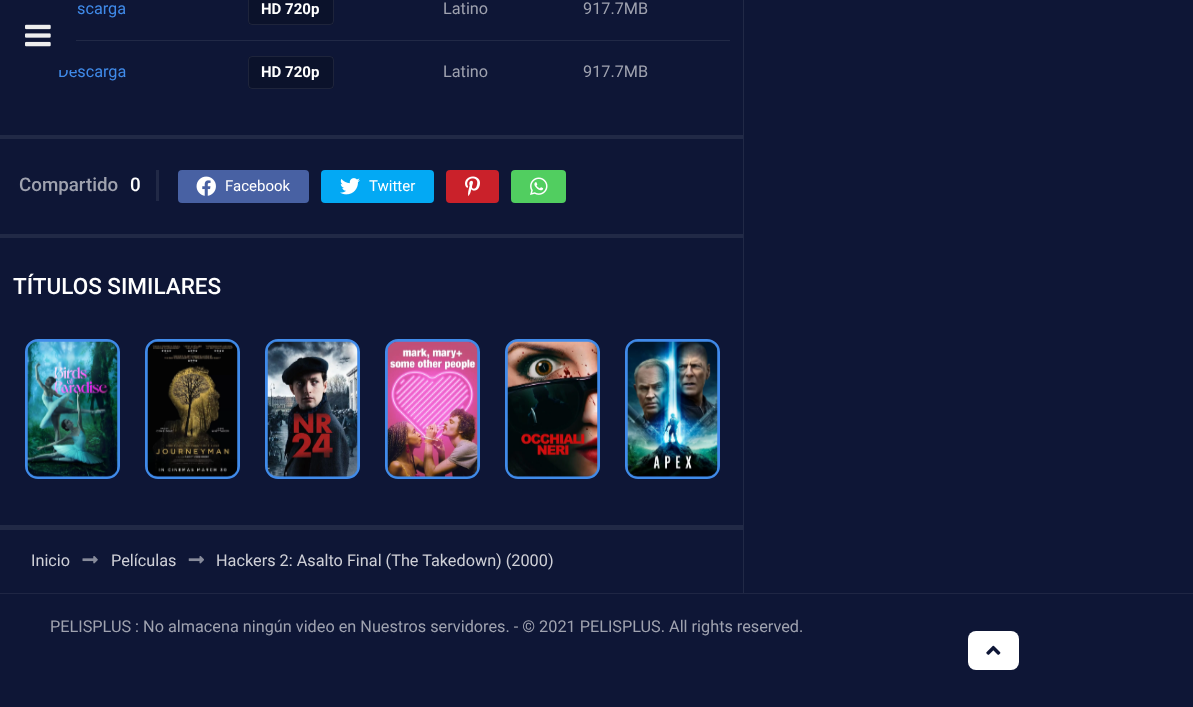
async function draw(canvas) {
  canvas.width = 1193
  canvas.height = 707
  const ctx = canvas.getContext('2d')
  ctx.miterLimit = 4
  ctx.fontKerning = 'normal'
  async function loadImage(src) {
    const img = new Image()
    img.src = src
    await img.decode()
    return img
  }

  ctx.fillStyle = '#0e1636'
  ctx.fillRect(0, 0, 1193, 707)
  ctx.fillStyle = '#1f2644'
  ctx.fillRect(0, 593, 1193, 1)
  ctx.fillStyle = '#212946'
  ctx.fillRect(743, 0, 1, 593)
  ctx.fillRect(0, 135, 743, 4)
  ctx.fillRect(76, 40, 654, 1)
  ctx.font = '16.25px Roboto'
  ctx.fillStyle = '#408bea'
  ctx.fillText('scarga', 77, 14)
  ctx.fillStyle = '#0b122b'
  ctx.beginPath()
  ctx.roundRect(248, -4, 86, 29, 4)
  ctx.fill()
  ctx.beginPath()
  ctx.roundRect(248.5, -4.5, 85, 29, 3.5)
  ctx.strokeStyle = '#ffffff14'
  ctx.stroke()
  ctx.font = 'bold 15px Roboto'
  ctx.fillStyle = '#fff'
  ctx.fillText('HD 720p', 261, 14)
  ctx.font = '16.25px Roboto'
  ctx.fillStyle = '#9fa2af'
  ctx.fillText('Latino', 443, 14)
  ctx.fillText('917.7MB', 583, 14)
  ctx.fillStyle = '#408bea'
  ctx.fillText('Descarga', 58, 77)
  ctx.fillStyle = '#0b122b'
  ctx.beginPath()
  ctx.roundRect(248, 56, 86, 33, 4)
  ctx.fill()
  ctx.beginPath()
  ctx.roundRect(248.5, 56.5, 85, 32, 3.5)
  ctx.stroke()
  ctx.font = 'bold 15px Roboto'
  ctx.fillStyle = '#fff'
  ctx.fillText('HD 720p', 261, 77)
  ctx.font = '16.25px Roboto'
  ctx.fillStyle = '#9fa2af'
  ctx.fillText('Latino', 443, 77)
  ctx.fillText('917.7MB', 583, 77)
  ctx.fillStyle = '#212946'
  ctx.fillRect(0, 234, 743, 4)
  ctx.fillRect(156, 170, 3, 31)
  ctx.font = '500 18.75px Roboto'
  ctx.fillStyle = '#9fa2af'
  ctx.fillText('Compartido', 19, 191)
  ctx.fillStyle = '#fff'
  ctx.fillText('0', 130, 191)
  ctx.fillStyle = '#4861a3'
  ctx.beginPath()
  ctx.roundRect(178, 170, 131, 33, 4)
  ctx.fill()
  ctx.drawImage(await loadImage('image0.png'), 196, 176, 20, 20)
  ctx.font = '15px Roboto'
  ctx.fillStyle = '#fff'
  ctx.fillText('Facebook', 225, 191)
  ctx.fillStyle = '#03a9f4'
  ctx.beginPath()
  ctx.roundRect(321, 170, 113, 33, 4)
  ctx.fill()
  ctx.drawImage(await loadImage('image1.png'), 340, 178, 20, 17)
  ctx.fillStyle = '#fff'
  ctx.fillText('Twitter', 369, 191)
  ctx.fillStyle = '#ca212a'
  ctx.beginPath()
  ctx.roundRect(446, 170, 53, 33, 4)
  ctx.fill()
  ctx.drawImage(await loadImage('image2.png'), 465, 176, 15, 20)
  ctx.fillStyle = '#51ce60'
  ctx.beginPath()
  ctx.roundRect(511, 170, 55, 33, 4)
  ctx.fill()
  ctx.drawImage(await loadImage('image3.png'), 530, 177, 18, 18)
  ctx.fillStyle = '#212946'
  ctx.fillRect(0, 525, 743, 5)
  ctx.font = '500 22.5px Roboto'
  ctx.fillStyle = '#fff'
  ctx.fillText('TÍTULOS SIMILARES', 13, 294)
  ctx.beginPath()
  ctx.roundRect(26.5, 340.5, 92, 137, 11.5)
  ctx.strokeStyle = '#408bea'
  ctx.lineWidth = 3
  ctx.stroke()
  ctx.drawImage(await loadImage('image4.png'), 27, 341, 91, 136)
  ctx.beginPath()
  ctx.roundRect(146.5, 340.5, 92, 137, 11.5)
  ctx.stroke()
  ctx.drawImage(await loadImage('image5.png'), 147, 341, 91, 136)
  ctx.beginPath()
  ctx.roundRect(266.5, 340.5, 92, 137, 11.5)
  ctx.stroke()
  ctx.drawImage(await loadImage('image6.png'), 267, 341, 91, 136)
  ctx.beginPath()
  ctx.roundRect(386.5, 340.5, 92, 137, 11.5)
  ctx.stroke()
  ctx.drawImage(await loadImage('image7.png'), 387, 341, 91, 136)
  ctx.beginPath()
  ctx.roundRect(506.5, 340.5, 92, 137, 11.5)
  ctx.stroke()
  ctx.drawImage(await loadImage('image8.png'), 507, 341, 91, 136)
  ctx.beginPath()
  ctx.roundRect(626.5, 340.5, 92, 137, 11.5)
  ctx.stroke()
  ctx.drawImage(await loadImage('image9.png'), 627, 341, 91, 136)
  ctx.font = '16.25px Roboto'
  ctx.fillStyle = '#cfd0d7'
  ctx.fillText('Inicio', 31, 566)
  ctx.drawImage(await loadImage('image10.png'), 82, 556, 16, 8)
  ctx.fillText('Películas', 111, 566)
  ctx.drawImage(await loadImage('image11.png'), 188, 556, 16, 8)
  ctx.fillText('Hackers 2: Asalto Final (The Takedown) (2000)', 216, 566)
  ctx.fillStyle = '#9fa2af'
  ctx.fillText('PELISPLUS : No almacena ningún video en Nuestros servidores. - © 2021 PELISPLUS. All rights reserved.', 50, 632)
  ctx.fillStyle = '#fff'
  ctx.beginPath()
  ctx.roundRect(968, 631, 51, 39, 8)
  ctx.fill()
  ctx.drawImage(await loadImage('image12.png'), 986, 645, 15, 10)
  ctx.fillStyle = '#0e1636'
  ctx.fillRect(58, 65, 18, 5)
  ctx.drawImage(await loadImage('image13.png'), 25, 24, 26, 23)
}

draw(document.querySelector('canvas'))
